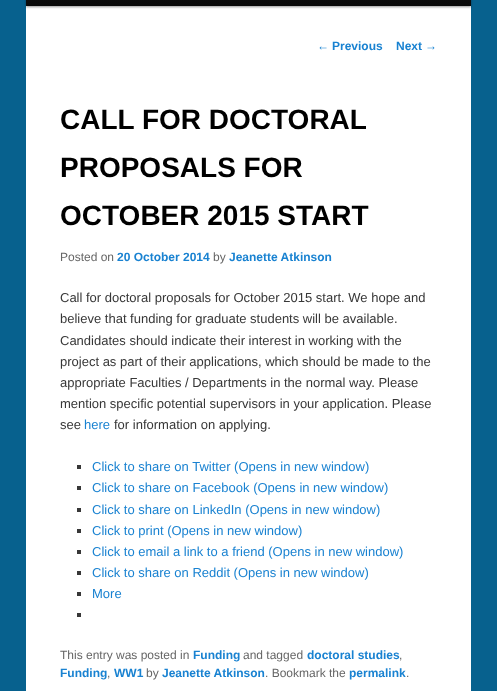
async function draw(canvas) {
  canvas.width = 497
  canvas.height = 691
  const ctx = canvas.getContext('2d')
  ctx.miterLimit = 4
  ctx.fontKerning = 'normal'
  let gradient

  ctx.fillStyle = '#07618e'
  ctx.fillRect(0, 0, 497, 691)
  ctx.fillStyle = '#fff'
  ctx.fillRect(26, 6, 445, 685)
  ctx.fillStyle = '#00000066'
  ctx.filter = 'blur(1px)'
  ctx.beginPath()
  ctx.rect(26, -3, 445, 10)
  ctx.fill()
  ctx.filter = 'none'
  gradient = ctx.createLinearGradient(249, -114, 249, 6)
  gradient.addColorStop(0, '#252525')
  gradient.addColorStop(1, '#0a0a0a')
  ctx.fillStyle = gradient
  ctx.fillRect(26, 0, 445, 6)
  ctx.font = '12px Liberation Sans'
  ctx.fillStyle = '#1982d1'
  ctx.fillText('←', 317, 50)
  ctx.font = 'bold 12px Liberation Sans'
  ctx.fillText('Previous', 332, 50)
  ctx.fillText('Next', 396, 50)
  ctx.font = '12px Liberation Sans'
  ctx.fillText('→', 425, 50)
  ctx.font = 'bold 28px Liberation Sans'
  ctx.fillStyle = '#000'
  ctx.fillText('CALL FOR DOCTORAL', 60, 129)
  ctx.fillText('PROPOSALS FOR', 60, 177)
  ctx.fillText('OCTOBER 2015 START', 60, 225)
  ctx.font = '12px Liberation Sans'
  ctx.fillStyle = '#666'
  ctx.fillText('Posted on', 60, 261)
  ctx.font = 'bold 12px Liberation Sans'
  ctx.fillStyle = '#1982d1'
  ctx.fillText('20 October 2014', 117, 261)
  ctx.font = '12px Liberation Sans'
  ctx.fillStyle = '#666'
  ctx.fillText('by', 213, 261)
  ctx.font = 'bold 12px Liberation Sans'
  ctx.fillStyle = '#1982d1'
  ctx.fillText('Jeanette Atkinson', 229, 261)
  ctx.font = '13px Liberation Sans'
  ctx.fillStyle = '#373737'
  ctx.fillText('Call for doctoral proposals for October 2015 start. We hope and', 60, 302)
  ctx.fillText('believe that funding for graduate students will be available.', 60, 323)
  ctx.fillText('Candidates should indicate their interest in working with the', 60, 345)
  ctx.fillText('project as part of their applications, which should be made to the', 60, 366)
  ctx.fillText('appropriate Faculties / Departments in the normal way. Please', 60, 387)
  ctx.fillText('mention specific potential supervisors in your application. Please', 60, 408)
  ctx.fillText('see', 60, 429)
  ctx.fillStyle = '#1982d1'
  ctx.fillText('here', 84, 429)
  ctx.fillStyle = '#373737'
  ctx.fillText('for information on applying.', 114, 429)
  ctx.fillRect(77, 465, 4, 4)
  ctx.fillStyle = '#1982d1'
  ctx.fillText('Click to share on Twitter (Opens in new window)', 92, 471)
  ctx.fillStyle = '#373737'
  ctx.fillRect(77, 486, 4, 4)
  ctx.fillStyle = '#1982d1'
  ctx.fillText('Click to share on Facebook (Opens in new window)', 92, 492)
  ctx.fillStyle = '#373737'
  ctx.fillRect(77, 508, 4, 4)
  ctx.fillStyle = '#1982d1'
  ctx.fillText('Click to share on LinkedIn (Opens in new window)', 92, 514)
  ctx.fillStyle = '#373737'
  ctx.fillRect(77, 529, 4, 4)
  ctx.fillStyle = '#1982d1'
  ctx.fillText('Click to print (Opens in new window)', 92, 535)
  ctx.fillStyle = '#373737'
  ctx.fillRect(77, 550, 4, 4)
  ctx.fillStyle = '#1982d1'
  ctx.fillText('Click to email a link to a friend (Opens in new window)', 92, 556)
  ctx.fillStyle = '#373737'
  ctx.fillRect(77, 571, 4, 4)
  ctx.fillStyle = '#1982d1'
  ctx.fillText('Click to share on Reddit (Opens in new window)', 92, 577)
  ctx.fillStyle = '#373737'
  ctx.fillRect(77, 592, 4, 4)
  ctx.fillStyle = '#1982d1'
  ctx.fillText('More', 92, 598)
  ctx.fillStyle = '#373737'
  ctx.fillRect(77, 613, 4, 4)
  ctx.font = '12px Liberation Sans'
  ctx.fillStyle = '#666'
  ctx.fillText('This entry was posted in', 60, 659)
  ctx.font = 'bold 12px Liberation Sans'
  ctx.fillStyle = '#1982d1'
  ctx.fillText('Funding', 193, 659)
  ctx.font = '12px Liberation Sans'
  ctx.fillStyle = '#666'
  ctx.fillText('and tagged', 243, 659)
  ctx.font = 'bold 12px Liberation Sans'
  ctx.fillStyle = '#1982d1'
  ctx.fillText('doctoral studies', 307, 659)
  ctx.font = '12px Liberation Sans'
  ctx.fillStyle = '#666'
  ctx.fillText(',', 399, 659)
  ctx.font = 'bold 12px Liberation Sans'
  ctx.fillStyle = '#1982d1'
  ctx.fillText('Funding', 60, 677)
  ctx.font = '12px Liberation Sans'
  ctx.fillStyle = '#666'
  ctx.fillText(',', 107, 677)
  ctx.font = 'bold 12px Liberation Sans'
  ctx.fillStyle = '#1982d1'
  ctx.fillText('WW1', 114, 677)
  ctx.font = '12px Liberation Sans'
  ctx.fillStyle = '#666'
  ctx.fillText('by', 146, 677)
  ctx.font = 'bold 12px Liberation Sans'
  ctx.fillStyle = '#1982d1'
  ctx.fillText('Jeanette Atkinson', 162, 677)
  ctx.font = '12px Liberation Sans'
  ctx.fillStyle = '#666'
  ctx.fillText('. Bookmark the', 265, 677)
  ctx.font = 'bold 12px Liberation Sans'
  ctx.fillStyle = '#1982d1'
  ctx.fillText('permalink', 349, 677)
  ctx.font = '12px Liberation Sans'
  ctx.fillStyle = '#666'
  ctx.fillText('.', 406, 677)
}

draw(document.querySelector('canvas'))
